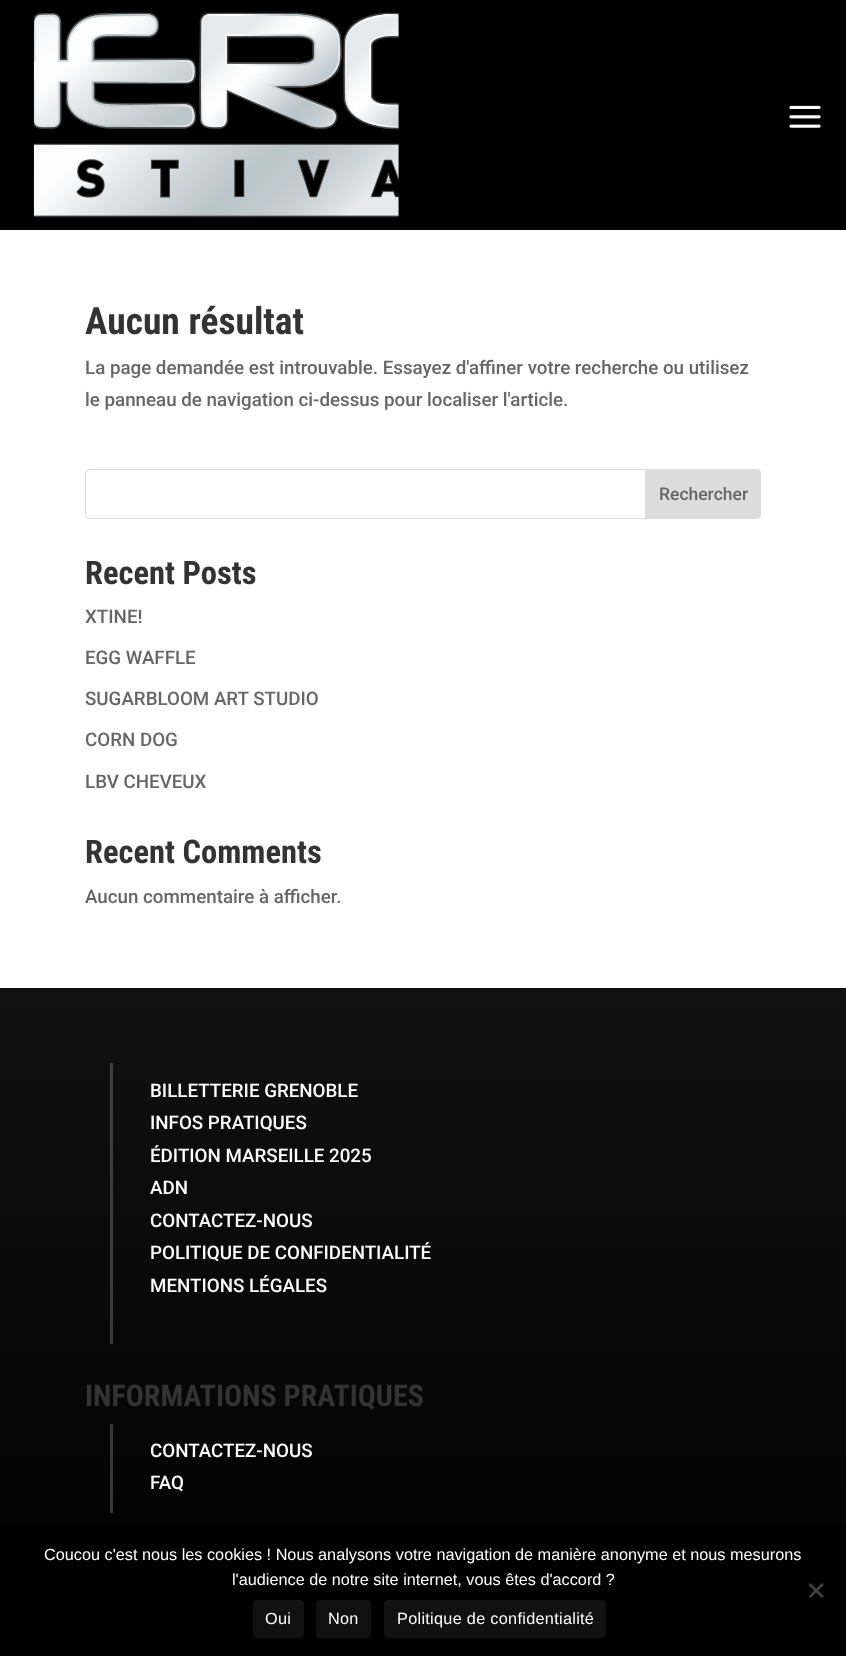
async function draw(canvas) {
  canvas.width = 846
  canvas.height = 1656
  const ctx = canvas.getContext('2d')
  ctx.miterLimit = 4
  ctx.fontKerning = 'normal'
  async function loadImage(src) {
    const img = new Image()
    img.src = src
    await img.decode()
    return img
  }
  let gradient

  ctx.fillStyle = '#fff'
  ctx.fillRect(0, 0, 846, 1656)
  ctx.fillStyle = '#000'
  ctx.fillRect(0, 0, 846, 230)
  ctx.drawImage(await loadImage('image0.png'), 33, 12, 366, 206)
  ctx.drawImage(await loadImage('image1.png'), 789, 105, 32, 23)
  ctx.font = 'bold 37.5px Roboto Condensed'
  ctx.fillStyle = '#333'
  ctx.fillText('Aucun résultat', 85, 334)
  ctx.font = '500 18.75px Roboto'
  ctx.fillStyle = '#666'
  ctx.fillText('La page demandée est introuvable. Essayez d\'affiner votre recherche ou utilisez', 85, 374)
  ctx.fillText('le panneau de navigation ci-dessus pour localiser l\'article.', 85, 406)
  ctx.beginPath()
  ctx.roundRect(85.5, 469.5, 675, 49, 3.5)
  ctx.strokeStyle = '#ddd'
  ctx.stroke()
  ctx.fillStyle = '#ddd'
  ctx.beginPath()
  ctx.roundRect(645.5, 469.5, 115, 49, [0, 3.5, 3.5, 0])
  ctx.fill()
  ctx.stroke()
  ctx.font = '500 17.5px Roboto'
  ctx.fillStyle = '#666'
  ctx.fillText('Rechercher', 659, 500)
  ctx.font = 'bold 32.5px Roboto Condensed'
  ctx.fillStyle = '#333'
  ctx.fillText('Recent Posts', 85, 584)
  ctx.font = '500 18.75px Roboto'
  ctx.fillStyle = '#666'
  ctx.fillText('XTINE!', 85, 623)
  ctx.fillText('EGG WAFFLE', 85, 664)
  ctx.fillText('SUGARBLOOM ART STUDIO', 85, 705)
  ctx.fillText('CORN DOG', 85, 746)
  ctx.fillText('LBV CHEVEUX', 85, 788)
  ctx.font = 'bold 32.5px Roboto Condensed'
  ctx.fillStyle = '#333'
  ctx.fillText('Recent Comments', 85, 863)
  ctx.font = '500 18.75px Roboto'
  ctx.fillStyle = '#666'
  ctx.fillText('Aucun commentaire à afficher.', 85, 903)
  gradient = ctx.createLinearGradient(423, 988, 423, 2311)
  gradient.addColorStop(0, '#111')
  gradient.addColorStop(0.5, '#000')
  ctx.fillStyle = gradient
  ctx.fillRect(0, 988, 846, 536)
  gradient = ctx.createLinearGradient(423, 988, 423, 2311)
  gradient.addColorStop(0, '#414141')
  gradient.addColorStop(0.5, '#333')
  ctx.fillStyle = gradient
  ctx.fillRect(110, 1063, 3, 281)
  ctx.fillStyle = '#fff'
  ctx.fillText('BILLETTERIE GRENOBLE', 150, 1097)
  ctx.fillText('INFOS PRATIQUES', 150, 1129)
  ctx.fillText('ÉDITION MARSEILLE 2025', 150, 1162)
  ctx.fillText('ADN', 150, 1194)
  ctx.fillText('CONTACTEZ-NOUS', 150, 1227)
  ctx.fillText('POLITIQUE DE CONFIDENTIALITÉ', 150, 1259)
  ctx.fillText('MENTIONS LÉGALES', 150, 1292)
  ctx.font = 'bold 30px Roboto Condensed'
  ctx.fillStyle = '#333'
  ctx.fillText('INFORMATIONS PRATIQUES', 85, 1406)
  ctx.fillStyle = '#373737'
  ctx.fillRect(110, 1424, 3, 89)
  ctx.font = '500 18.75px Roboto'
  ctx.fillStyle = '#fff'
  ctx.fillText('CONTACTEZ-NOUS', 150, 1457)
  ctx.fillText('FAQ', 150, 1489)
  ctx.fillStyle = '#000'
  ctx.fillRect(0, 1524, 846, 132)
  ctx.font = '16.25px Liberation Sans'
  ctx.fillStyle = '#fff'
  ctx.fillText('Coucou c\'est nous les cookies ! Nous analysons votre navigation de manière anonyme et nous mesurons', 44, 1560)
  ctx.fillText('l\'audience de notre site internet, vous êtes d\'accord ?', 232, 1585)
  ctx.fillStyle = '#404040'
  ctx.beginPath()
  ctx.moveTo(822, 1583)
  ctx.lineTo(824, 1585)
  ctx.lineTo(810.5, 1598)
  ctx.lineTo(808.5, 1596.5)
  ctx.closePath()
  ctx.fill()
  ctx.beginPath()
  ctx.moveTo(808.5, 1585)
  ctx.lineTo(810.5, 1583)
  ctx.lineTo(824, 1596.5)
  ctx.lineTo(822, 1598)
  ctx.closePath()
  ctx.fill()
  ctx.fillStyle = '#111'
  ctx.beginPath()
  ctx.roundRect(253, 1600, 51, 38, 4)
  ctx.fill()
  ctx.letterSpacing = '0.3px'
  ctx.fillStyle = '#fff'
  ctx.fillText('Oui', 265, 1624)
  ctx.fillStyle = '#111'
  ctx.beginPath()
  ctx.roundRect(316, 1600, 55, 38, 4)
  ctx.fill()
  ctx.fillStyle = '#fff'
  ctx.fillText('Non', 328, 1624)
  ctx.fillStyle = '#111'
  ctx.beginPath()
  ctx.roundRect(384, 1600, 222, 38, 4)
  ctx.fill()
  ctx.fillStyle = '#fff'
  ctx.fillText('Politique de confidentialité', 397, 1624)
}

draw(document.querySelector('canvas'))
